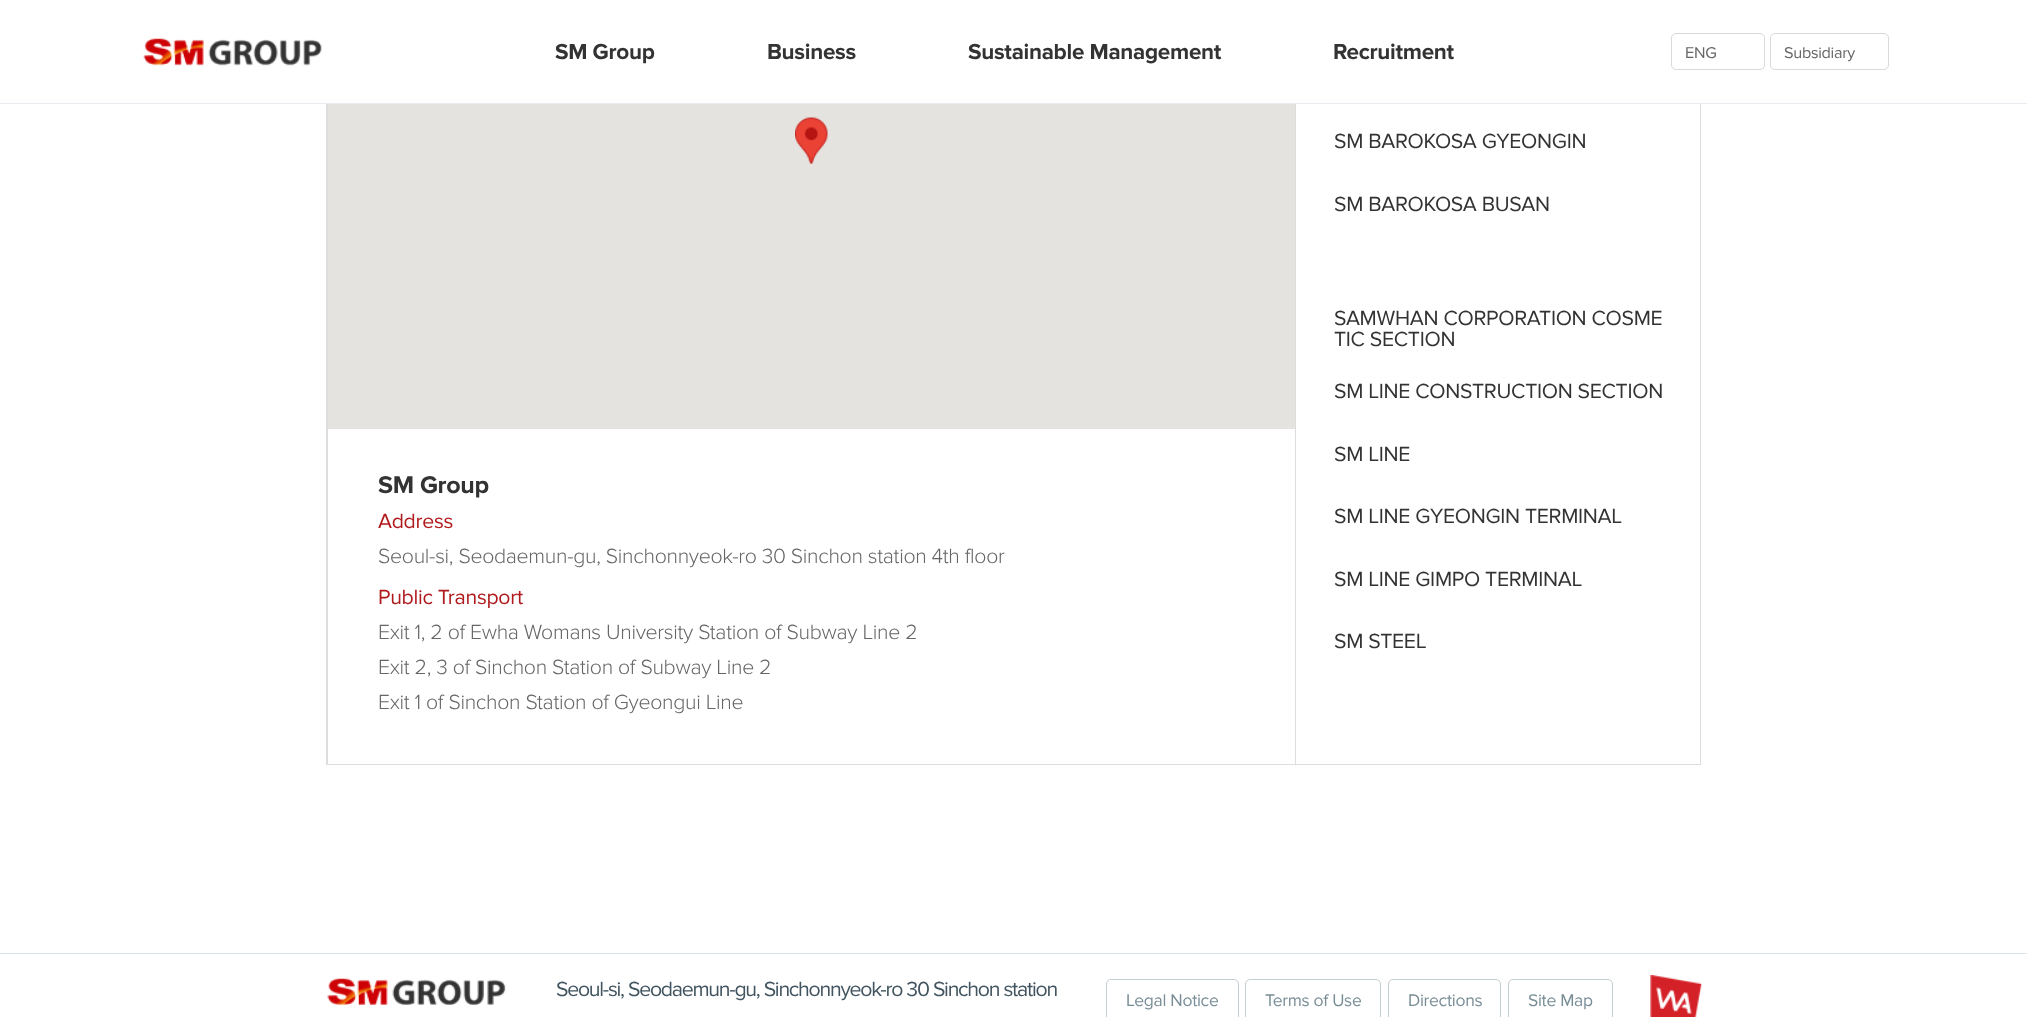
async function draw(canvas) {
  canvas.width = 2027
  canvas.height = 1017
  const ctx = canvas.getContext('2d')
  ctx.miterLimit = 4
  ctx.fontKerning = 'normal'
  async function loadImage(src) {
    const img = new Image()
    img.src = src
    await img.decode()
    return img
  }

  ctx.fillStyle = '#fff'
  ctx.fillRect(0, 0, 2027, 1017)
  ctx.fillStyle = '#ddd'
  ctx.beginPath()
  ctx.moveTo(1701, -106)
  ctx.lineTo(1701, 765)
  ctx.lineTo(1700, 764)
  ctx.lineTo(1700, -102)
  ctx.closePath()
  ctx.fill()
  ctx.fillRect(326, 764, 1375, 1)
  ctx.beginPath()
  ctx.moveTo(326, 765)
  ctx.lineTo(326, -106)
  ctx.lineTo(328, -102)
  ctx.lineTo(328, 764)
  ctx.closePath()
  ctx.fill()
  ctx.fillStyle = '#fff'
  ctx.fillRect(326, 0, 1375, 103)
  ctx.fillStyle = '#e8ebf0'
  ctx.fillRect(0, 103, 2027, 1)
  ctx.drawImage(await loadImage('image0.png'), 143, 38, 179, 28)
  ctx.letterSpacing = '-0.3px'
  ctx.font = 'bold 22.5px Proxima Nova'
  ctx.fillStyle = '#333'
  ctx.fillText('SM Group', 555, 59)
  ctx.fillText('Business', 767, 59)
  ctx.fillText('Sustainable Management', 968, 59)
  ctx.fillText('Recruitment', 1333, 59)
  ctx.beginPath()
  ctx.roundRect(1671.5, 33.5, 93, 36, 4.5)
  ctx.strokeStyle = '#d9d9d9'
  ctx.stroke()
  ctx.font = '16.25px Proxima Nova'
  ctx.fillStyle = '#666'
  ctx.fillText('ENG', 1685, 58)
  ctx.beginPath()
  ctx.roundRect(1770.5, 33.5, 118, 36, 4.5)
  ctx.stroke()
  ctx.fillText('Subsidiary', 1784, 58)
  ctx.fillStyle = '#ddd'
  ctx.fillRect(1295, 104, 1, 660)
  ctx.fillStyle = '#e5e3df'
  ctx.fillRect(328, 104, 967, 325)
  ctx.drawImage(await loadImage('image1.png'), 795, 117, 33, 47)
  ctx.font = 'bold 25px Proxima Nova'
  ctx.fillStyle = '#333'
  ctx.fillText('SM Group', 378, 493)
  ctx.font = '21.25px Proxima Nova'
  ctx.fillStyle = '#b01a1d'
  ctx.fillText('Address', 378, 528)
  ctx.font = '300 21.25px Proxima Nova'
  ctx.fillStyle = '#666'
  ctx.fillText('Seoul-si, Seodaemun-gu, Sinchonnyeok-ro 30 Sinchon station 4th floor', 378, 563)
  ctx.font = '21.25px Proxima Nova'
  ctx.fillStyle = '#b01a1d'
  ctx.fillText('Public Transport', 378, 604)
  ctx.font = '300 21.25px Proxima Nova'
  ctx.fillStyle = '#666'
  ctx.fillText('Exit 1, 2 of Ewha Womans University Station of Subway Line 2', 378, 639)
  ctx.fillText('Exit 2, 3 of Sinchon Station of Subway Line 2', 378, 674)
  ctx.fillText('Exit 1 of Sinchon Station of Gyeongui Line', 378, 709)
  ctx.font = '21.25px Proxima Nova'
  ctx.fillStyle = '#333'
  ctx.fillText('SM BAROKOSA GYEONGIN', 1334, 148)
  ctx.fillText('SM BAROKOSA BUSAN', 1334, 211)
  ctx.fillText('SAMWHAN CORPORATION COSME', 1334, 325)
  ctx.fillText('TIC SECTION', 1334, 346)
  ctx.fillText('SM LINE CONSTRUCTION SECTION', 1334, 398)
  ctx.fillText('SM LINE', 1334, 461)
  ctx.fillText('SM LINE GYEONGIN TERMINAL', 1334, 523)
  ctx.fillText('SM LINE GIMPO TERMINAL', 1334, 586)
  ctx.fillText('SM STEEL', 1334, 648)
  ctx.fillStyle = '#dce5ea'
  ctx.fillRect(0, 953, 2027, 1)
  ctx.drawImage(await loadImage('image2.png'), 327, 978, 179, 27)
  ctx.letterSpacing = '-1.25px'
  ctx.fillStyle = '#41545f'
  ctx.fillText('Seoul-si, Seodaemun-gu, Sinchonnyeok-ro 30 Sinchon station', 556, 996)
  ctx.beginPath()
  ctx.roundRect(1106.5, 979.5, 132, 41, 4.5)
  ctx.strokeStyle = '#c3cdd2'
  ctx.stroke()
  ctx.letterSpacing = '-0.3px'
  ctx.font = '17.5px Proxima Nova'
  ctx.fillStyle = '#798d97'
  ctx.fillText('Legal Notice', 1126, 1006)
  ctx.beginPath()
  ctx.roundRect(1245.5, 979.5, 135, 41, 4.5)
  ctx.stroke()
  ctx.fillText('Terms of Use', 1265, 1006)
  ctx.beginPath()
  ctx.roundRect(1388.5, 979.5, 112, 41, 4.5)
  ctx.stroke()
  ctx.fillText('Directions', 1408, 1006)
  ctx.beginPath()
  ctx.roundRect(1508.5, 979.5, 104, 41, 4.5)
  ctx.stroke()
  ctx.fillText('Site Map', 1528, 1006)
  ctx.drawImage(await loadImage('image3.png'), 1650, 975, 52, 42)
}

draw(document.querySelector('canvas'))
